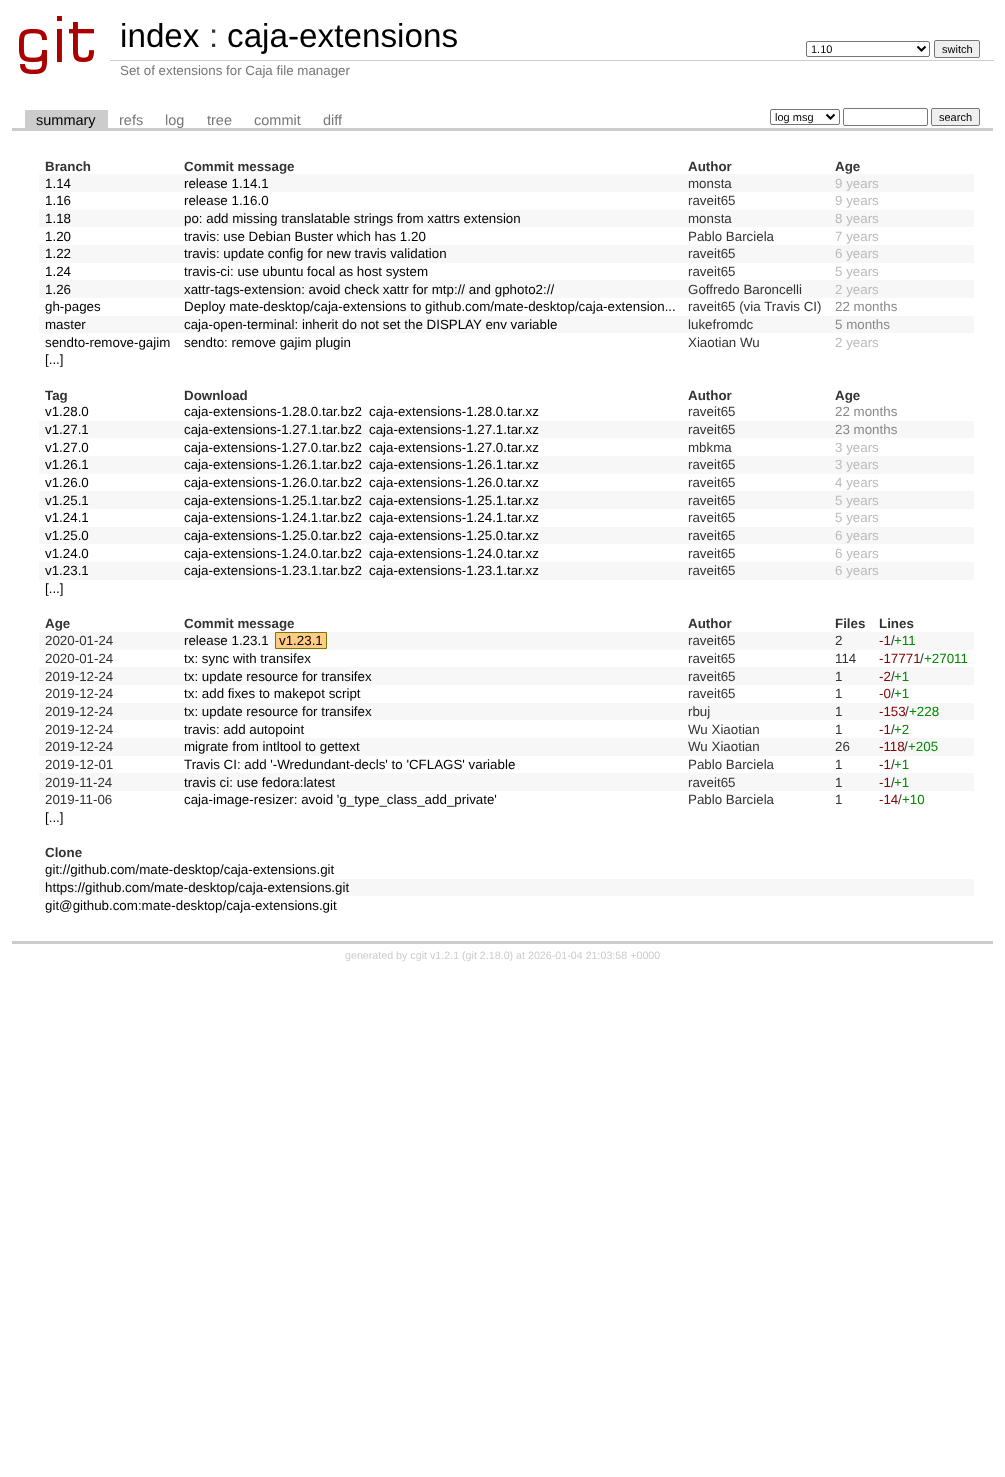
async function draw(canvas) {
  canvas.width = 1005
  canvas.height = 1477
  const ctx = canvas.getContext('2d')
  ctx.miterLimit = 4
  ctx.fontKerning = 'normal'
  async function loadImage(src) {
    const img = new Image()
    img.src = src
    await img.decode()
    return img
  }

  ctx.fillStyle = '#fff'
  ctx.fillRect(0, 0, 1005, 1477)
  ctx.drawImage(await loadImage('image0.png'), 19, 16, 75, 58)
  ctx.font = '33.25px Liberation Sans'
  ctx.fillStyle = '#000'
  ctx.fillText('index', 120, 47)
  ctx.fillStyle = '#333'
  ctx.fillText(':', 209, 47)
  ctx.fillStyle = '#000'
  ctx.fillText('caja-extensions', 227, 47)
  ctx.beginPath()
  ctx.roundRect(806.5, 41.5, 123, 15, 1.5)
  ctx.strokeStyle = '#767676'
  ctx.stroke()
  ctx.beginPath()
  ctx.moveTo(917.5, 46.5)
  ctx.lineTo(921.5, 50.5)
  ctx.lineTo(925.5, 46.5)
  ctx.strokeStyle = '#000'
  ctx.lineWidth = 2
  ctx.stroke()
  ctx.font = '11px Liberation Sans'
  ctx.fillText('1.10', 811, 53)
  ctx.fillStyle = '#efefef'
  ctx.beginPath()
  ctx.roundRect(934.5, 40.5, 45, 17, 1.5)
  ctx.fill()
  ctx.strokeStyle = '#767676'
  ctx.lineWidth = 1
  ctx.stroke()
  ctx.fillStyle = '#000'
  ctx.fillText('switch', 942, 53)
  ctx.fillStyle = '#ccc'
  ctx.fillRect(110, 60, 884, 1)
  ctx.font = '13.35px Liberation Sans'
  ctx.fillStyle = '#777'
  ctx.fillText('Set of extensions for Caja file manager', 120, 75)
  ctx.fillStyle = '#ccc'
  ctx.fillRect(12, 128, 981, 3)
  ctx.fillRect(25, 110, 83, 18)
  ctx.font = '14.5px Liberation Sans'
  ctx.fillStyle = '#000'
  ctx.fillText('summary', 36, 125)
  ctx.fillStyle = '#777'
  ctx.fillText('refs', 119, 125)
  ctx.fillText('log', 165, 125)
  ctx.fillText('tree', 207, 125)
  ctx.fillText('commit', 254, 125)
  ctx.fillText('diff', 323, 125)
  ctx.beginPath()
  ctx.roundRect(770.5, 109.5, 69, 15, 1.5)
  ctx.stroke()
  ctx.beginPath()
  ctx.moveTo(826.5, 114.5)
  ctx.lineTo(830.5, 118.5)
  ctx.lineTo(834.5, 114.5)
  ctx.strokeStyle = '#000'
  ctx.lineWidth = 2
  ctx.stroke()
  ctx.font = '11px Liberation Sans'
  ctx.fillStyle = '#000'
  ctx.fillText('log msg', 775, 121)
  ctx.beginPath()
  ctx.roundRect(843.5, 108.5, 84, 17, 1.5)
  ctx.strokeStyle = '#767676'
  ctx.lineWidth = 1
  ctx.stroke()
  ctx.fillStyle = '#efefef'
  ctx.beginPath()
  ctx.roundRect(931.5, 108.5, 48, 17, 1.5)
  ctx.fill()
  ctx.stroke()
  ctx.fillStyle = '#000'
  ctx.fillText('search', 939, 121)
  ctx.fillStyle = '#ccc'
  ctx.fillRect(12, 941, 981, 3)
  ctx.font = 'bold 13.35px Liberation Sans'
  ctx.fillStyle = '#333'
  ctx.fillText('Branch', 45, 171)
  ctx.fillText('Commit message', 184, 171)
  ctx.fillText('Author', 688, 171)
  ctx.fillText('Age', 835, 171)
  ctx.fillStyle = '#f7f7f7'
  ctx.fillRect(39, 174, 935, 18)
  ctx.font = '13.35px Liberation Sans'
  ctx.fillStyle = '#000'
  ctx.fillText('1.14', 45, 188)
  ctx.fillText('release 1.14.1', 184, 188)
  ctx.fillStyle = '#333'
  ctx.fillText('monsta', 688, 188)
  ctx.fillStyle = '#bbb'
  ctx.fillText('9 years', 835, 188)
  ctx.fillStyle = '#000'
  ctx.fillText('1.16', 45, 205)
  ctx.fillText('release 1.16.0', 184, 205)
  ctx.fillStyle = '#333'
  ctx.fillText('raveit65', 688, 205)
  ctx.fillStyle = '#bbb'
  ctx.fillText('9 years', 835, 205)
  ctx.fillStyle = '#f7f7f7'
  ctx.fillRect(39, 210, 935, 17)
  ctx.fillStyle = '#000'
  ctx.fillText('1.18', 45, 223)
  ctx.fillText('po: add missing translatable strings from xattrs extension', 184, 223)
  ctx.fillStyle = '#333'
  ctx.fillText('monsta', 688, 223)
  ctx.fillStyle = '#bbb'
  ctx.fillText('8 years', 835, 223)
  ctx.fillStyle = '#000'
  ctx.fillText('1.20', 45, 241)
  ctx.fillText('travis: use Debian Buster which has 1.20', 184, 241)
  ctx.fillStyle = '#333'
  ctx.fillText('Pablo Barciela', 688, 241)
  ctx.fillStyle = '#bbb'
  ctx.fillText('7 years', 835, 241)
  ctx.fillStyle = '#f7f7f7'
  ctx.fillRect(39, 245, 935, 18)
  ctx.fillStyle = '#000'
  ctx.fillText('1.22', 45, 258)
  ctx.fillText('travis: update config for new travis validation', 184, 258)
  ctx.fillStyle = '#333'
  ctx.fillText('raveit65', 688, 258)
  ctx.fillStyle = '#bbb'
  ctx.fillText('6 years', 835, 258)
  ctx.fillStyle = '#000'
  ctx.fillText('1.24', 45, 276)
  ctx.fillText('travis-ci: use ubuntu focal as host system', 184, 276)
  ctx.fillStyle = '#333'
  ctx.fillText('raveit65', 688, 276)
  ctx.fillStyle = '#bbb'
  ctx.fillText('5 years', 835, 276)
  ctx.fillStyle = '#f7f7f7'
  ctx.fillRect(39, 280, 935, 18)
  ctx.fillStyle = '#000'
  ctx.fillText('1.26', 45, 294)
  ctx.fillText('xattr-tags-extension: avoid check xattr for mtp:// and gphoto2://', 184, 294)
  ctx.fillStyle = '#333'
  ctx.fillText('Goffredo Baroncelli', 688, 294)
  ctx.fillStyle = '#bbb'
  ctx.fillText('2 years', 835, 294)
  ctx.fillStyle = '#000'
  ctx.fillText('gh-pages', 45, 311)
  ctx.fillText('Deploy mate-desktop/caja-extensions to github.com/mate-desktop/caja-extension...', 184, 311)
  ctx.fillStyle = '#333'
  ctx.fillText('raveit65 (via Travis CI)', 688, 311)
  ctx.fillStyle = '#888'
  ctx.fillText('22 months', 835, 311)
  ctx.fillStyle = '#f7f7f7'
  ctx.fillRect(39, 316, 935, 17)
  ctx.fillStyle = '#000'
  ctx.fillText('master', 45, 329)
  ctx.fillText('caja-open-terminal: inherit do not set the DISPLAY env variable', 184, 329)
  ctx.fillStyle = '#333'
  ctx.fillText('lukefromdc', 688, 329)
  ctx.fillStyle = '#888'
  ctx.fillText('5 months', 835, 329)
  ctx.fillStyle = '#000'
  ctx.fillText('sendto-remove-gajim', 45, 347)
  ctx.fillText('sendto: remove gajim plugin', 184, 347)
  ctx.fillStyle = '#333'
  ctx.fillText('Xiaotian Wu', 688, 347)
  ctx.fillStyle = '#bbb'
  ctx.fillText('2 years', 835, 347)
  ctx.fillStyle = '#000'
  ctx.fillText('[...]', 45, 364)
  ctx.font = 'bold 13.35px Liberation Sans'
  ctx.fillStyle = '#333'
  ctx.fillText('Tag', 45, 400)
  ctx.fillText('Download', 184, 400)
  ctx.fillText('Author', 688, 400)
  ctx.fillText('Age', 835, 400)
  ctx.font = '13.35px Liberation Sans'
  ctx.fillStyle = '#000'
  ctx.fillText('v1.28.0', 45, 416)
  ctx.fillText('caja-extensions-1.28.0.tar.bz2', 184, 416)
  ctx.fillText('caja-extensions-1.28.0.tar.xz', 369, 416)
  ctx.fillStyle = '#333'
  ctx.fillText('raveit65', 688, 416)
  ctx.fillStyle = '#888'
  ctx.fillText('22 months', 835, 416)
  ctx.fillStyle = '#f7f7f7'
  ctx.fillRect(39, 421, 935, 17)
  ctx.fillStyle = '#000'
  ctx.fillText('v1.27.1', 45, 434)
  ctx.fillText('caja-extensions-1.27.1.tar.bz2', 184, 434)
  ctx.fillText('caja-extensions-1.27.1.tar.xz', 369, 434)
  ctx.fillStyle = '#333'
  ctx.fillText('raveit65', 688, 434)
  ctx.fillStyle = '#888'
  ctx.fillText('23 months', 835, 434)
  ctx.fillStyle = '#000'
  ctx.fillText('v1.27.0', 45, 452)
  ctx.fillText('caja-extensions-1.27.0.tar.bz2', 184, 452)
  ctx.fillText('caja-extensions-1.27.0.tar.xz', 369, 452)
  ctx.fillStyle = '#333'
  ctx.fillText('mbkma', 688, 452)
  ctx.fillStyle = '#bbb'
  ctx.fillText('3 years', 835, 452)
  ctx.fillStyle = '#f7f7f7'
  ctx.fillRect(39, 456, 935, 18)
  ctx.fillStyle = '#000'
  ctx.fillText('v1.26.1', 45, 469)
  ctx.fillText('caja-extensions-1.26.1.tar.bz2', 184, 469)
  ctx.fillText('caja-extensions-1.26.1.tar.xz', 369, 469)
  ctx.fillStyle = '#333'
  ctx.fillText('raveit65', 688, 469)
  ctx.fillStyle = '#bbb'
  ctx.fillText('3 years', 835, 469)
  ctx.fillStyle = '#000'
  ctx.fillText('v1.26.0', 45, 487)
  ctx.fillText('caja-extensions-1.26.0.tar.bz2', 184, 487)
  ctx.fillText('caja-extensions-1.26.0.tar.xz', 369, 487)
  ctx.fillStyle = '#333'
  ctx.fillText('raveit65', 688, 487)
  ctx.fillStyle = '#bbb'
  ctx.fillText('4 years', 835, 487)
  ctx.fillStyle = '#f7f7f7'
  ctx.fillRect(39, 491, 935, 18)
  ctx.fillStyle = '#000'
  ctx.fillText('v1.25.1', 45, 505)
  ctx.fillText('caja-extensions-1.25.1.tar.bz2', 184, 505)
  ctx.fillText('caja-extensions-1.25.1.tar.xz', 369, 505)
  ctx.fillStyle = '#333'
  ctx.fillText('raveit65', 688, 505)
  ctx.fillStyle = '#bbb'
  ctx.fillText('5 years', 835, 505)
  ctx.fillStyle = '#000'
  ctx.fillText('v1.24.1', 45, 522)
  ctx.fillText('caja-extensions-1.24.1.tar.bz2', 184, 522)
  ctx.fillText('caja-extensions-1.24.1.tar.xz', 369, 522)
  ctx.fillStyle = '#333'
  ctx.fillText('raveit65', 688, 522)
  ctx.fillStyle = '#bbb'
  ctx.fillText('5 years', 835, 522)
  ctx.fillStyle = '#f7f7f7'
  ctx.fillRect(39, 527, 935, 17)
  ctx.fillStyle = '#000'
  ctx.fillText('v1.25.0', 45, 540)
  ctx.fillText('caja-extensions-1.25.0.tar.bz2', 184, 540)
  ctx.fillText('caja-extensions-1.25.0.tar.xz', 369, 540)
  ctx.fillStyle = '#333'
  ctx.fillText('raveit65', 688, 540)
  ctx.fillStyle = '#bbb'
  ctx.fillText('6 years', 835, 540)
  ctx.fillStyle = '#000'
  ctx.fillText('v1.24.0', 45, 558)
  ctx.fillText('caja-extensions-1.24.0.tar.bz2', 184, 558)
  ctx.fillText('caja-extensions-1.24.0.tar.xz', 369, 558)
  ctx.fillStyle = '#333'
  ctx.fillText('raveit65', 688, 558)
  ctx.fillStyle = '#bbb'
  ctx.fillText('6 years', 835, 558)
  ctx.fillStyle = '#f7f7f7'
  ctx.fillRect(39, 562, 935, 18)
  ctx.fillStyle = '#000'
  ctx.fillText('v1.23.1', 45, 575)
  ctx.fillText('caja-extensions-1.23.1.tar.bz2', 184, 575)
  ctx.fillText('caja-extensions-1.23.1.tar.xz', 369, 575)
  ctx.fillStyle = '#333'
  ctx.fillText('raveit65', 688, 575)
  ctx.fillStyle = '#bbb'
  ctx.fillText('6 years', 835, 575)
  ctx.fillStyle = '#000'
  ctx.fillText('[...]', 45, 593)
  ctx.font = 'bold 13.35px Liberation Sans'
  ctx.fillStyle = '#333'
  ctx.fillText('Age', 45, 628)
  ctx.fillText('Commit message', 184, 628)
  ctx.fillText('Author', 688, 628)
  ctx.fillText('Files', 835, 628)
  ctx.fillText('Lines', 879, 628)
  ctx.fillStyle = '#f7f7f7'
  ctx.fillRect(39, 632, 935, 18)
  ctx.font = '13.35px Liberation Sans'
  ctx.fillStyle = '#333'
  ctx.fillText('2020-01-24', 45, 645)
  ctx.fillStyle = '#000'
  ctx.fillText('release 1.23.1', 184, 645)
  ctx.fillStyle = '#fc8'
  ctx.beginPath()
  ctx.rect(275.5, 632.5, 51, 16)
  ctx.fill()
  ctx.strokeStyle = '#770'
  ctx.stroke()
  ctx.fillStyle = '#000'
  ctx.fillText('v1.23.1', 279, 645)
  ctx.fillStyle = '#333'
  ctx.fillText('raveit65', 688, 645)
  ctx.fillText('2', 835, 645)
  ctx.fillStyle = '#800'
  ctx.fillText('-1', 879, 645)
  ctx.fillStyle = '#333'
  ctx.fillText('/', 891, 645)
  ctx.fillStyle = '#080'
  ctx.fillText('+11', 894, 645)
  ctx.fillStyle = '#333'
  ctx.fillText('2020-01-24', 45, 663)
  ctx.fillStyle = '#000'
  ctx.fillText('tx: sync with transifex', 184, 663)
  ctx.fillStyle = '#333'
  ctx.fillText('raveit65', 688, 663)
  ctx.fillText('114', 835, 663)
  ctx.fillStyle = '#800'
  ctx.fillText('-17771', 879, 663)
  ctx.fillStyle = '#333'
  ctx.fillText('/', 920, 663)
  ctx.fillStyle = '#080'
  ctx.fillText('+27011', 924, 663)
  ctx.fillStyle = '#f7f7f7'
  ctx.fillRect(39, 667, 935, 18)
  ctx.fillStyle = '#333'
  ctx.fillText('2019-12-24', 45, 681)
  ctx.fillStyle = '#000'
  ctx.fillText('tx: update resource for transifex', 184, 681)
  ctx.fillStyle = '#333'
  ctx.fillText('raveit65', 688, 681)
  ctx.fillText('1', 835, 681)
  ctx.fillStyle = '#800'
  ctx.fillText('-2', 879, 681)
  ctx.fillStyle = '#333'
  ctx.fillText('/', 891, 681)
  ctx.fillStyle = '#080'
  ctx.fillText('+1', 894, 681)
  ctx.fillStyle = '#333'
  ctx.fillText('2019-12-24', 45, 698)
  ctx.fillStyle = '#000'
  ctx.fillText('tx: add fixes to makepot script', 184, 698)
  ctx.fillStyle = '#333'
  ctx.fillText('raveit65', 688, 698)
  ctx.fillText('1', 835, 698)
  ctx.fillStyle = '#800'
  ctx.fillText('-0', 879, 698)
  ctx.fillStyle = '#333'
  ctx.fillText('/', 891, 698)
  ctx.fillStyle = '#080'
  ctx.fillText('+1', 894, 698)
  ctx.fillStyle = '#f7f7f7'
  ctx.fillRect(39, 703, 935, 17)
  ctx.fillStyle = '#333'
  ctx.fillText('2019-12-24', 45, 716)
  ctx.fillStyle = '#000'
  ctx.fillText('tx: update resource for transifex', 184, 716)
  ctx.fillStyle = '#333'
  ctx.fillText('rbuj', 688, 716)
  ctx.fillText('1', 835, 716)
  ctx.fillStyle = '#800'
  ctx.fillText('-153', 879, 716)
  ctx.fillStyle = '#333'
  ctx.fillText('/', 905, 716)
  ctx.fillStyle = '#080'
  ctx.fillText('+228', 909, 716)
  ctx.fillStyle = '#333'
  ctx.fillText('2019-12-24', 45, 734)
  ctx.fillStyle = '#000'
  ctx.fillText('travis: add autopoint', 184, 734)
  ctx.fillStyle = '#333'
  ctx.fillText('Wu Xiaotian', 688, 734)
  ctx.fillText('1', 835, 734)
  ctx.fillStyle = '#800'
  ctx.fillText('-1', 879, 734)
  ctx.fillStyle = '#333'
  ctx.fillText('/', 891, 734)
  ctx.fillStyle = '#080'
  ctx.fillText('+2', 894, 734)
  ctx.fillStyle = '#f7f7f7'
  ctx.fillRect(39, 738, 935, 18)
  ctx.fillStyle = '#333'
  ctx.fillText('2019-12-24', 45, 751)
  ctx.fillStyle = '#000'
  ctx.fillText('migrate from intltool to gettext', 184, 751)
  ctx.fillStyle = '#333'
  ctx.fillText('Wu Xiaotian', 688, 751)
  ctx.fillText('26', 835, 751)
  ctx.fillStyle = '#800'
  ctx.fillText('-118', 879, 751)
  ctx.fillStyle = '#333'
  ctx.fillText('/', 904, 751)
  ctx.fillStyle = '#080'
  ctx.fillText('+205', 908, 751)
  ctx.fillStyle = '#333'
  ctx.fillText('2019-12-01', 45, 769)
  ctx.fillStyle = '#000'
  ctx.fillText('Travis CI: add \'-Wredundant-decls\' to \'CFLAGS\' variable', 184, 769)
  ctx.fillStyle = '#333'
  ctx.fillText('Pablo Barciela', 688, 769)
  ctx.fillText('1', 835, 769)
  ctx.fillStyle = '#800'
  ctx.fillText('-1', 879, 769)
  ctx.fillStyle = '#333'
  ctx.fillText('/', 891, 769)
  ctx.fillStyle = '#080'
  ctx.fillText('+1', 894, 769)
  ctx.fillStyle = '#f7f7f7'
  ctx.fillRect(39, 773, 935, 18)
  ctx.fillStyle = '#333'
  ctx.fillText('2019-11-24', 45, 787)
  ctx.fillStyle = '#000'
  ctx.fillText('travis ci: use fedora:latest', 184, 787)
  ctx.fillStyle = '#333'
  ctx.fillText('raveit65', 688, 787)
  ctx.fillText('1', 835, 787)
  ctx.fillStyle = '#800'
  ctx.fillText('-1', 879, 787)
  ctx.fillStyle = '#333'
  ctx.fillText('/', 891, 787)
  ctx.fillStyle = '#080'
  ctx.fillText('+1', 894, 787)
  ctx.fillStyle = '#333'
  ctx.fillText('2019-11-06', 45, 804)
  ctx.fillStyle = '#000'
  ctx.fillText('caja-image-resizer: avoid \'g_type_class_add_private\'', 184, 804)
  ctx.fillStyle = '#333'
  ctx.fillText('Pablo Barciela', 688, 804)
  ctx.fillText('1', 835, 804)
  ctx.fillStyle = '#800'
  ctx.fillText('-14', 879, 804)
  ctx.fillStyle = '#333'
  ctx.fillText('/', 898, 804)
  ctx.fillStyle = '#080'
  ctx.fillText('+10', 902, 804)
  ctx.fillStyle = '#000'
  ctx.fillText('[...]', 45, 822)
  ctx.font = 'bold 13.35px Liberation Sans'
  ctx.fillStyle = '#333'
  ctx.fillText('Clone', 45, 857)
  ctx.font = '13.35px Liberation Sans'
  ctx.fillStyle = '#000'
  ctx.fillText('git://github.com/mate-desktop/caja-extensions.git', 45, 874)
  ctx.fillStyle = '#f7f7f7'
  ctx.fillRect(39, 879, 935, 17)
  ctx.fillStyle = '#000'
  ctx.fillText('https://github.com/mate-desktop/caja-extensions.git', 45, 892)
  ctx.fillText('git@github.com:mate-desktop/caja-extensions.git', 45, 910)
  ctx.font = '10.7px Liberation Sans'
  ctx.fillStyle = '#ccc'
  ctx.fillText('generated by cgit v1.2.1 (git 2.18.0) at 2026-01-04 21:03:58 +0000', 345, 959)
}

draw(document.querySelector('canvas'))
